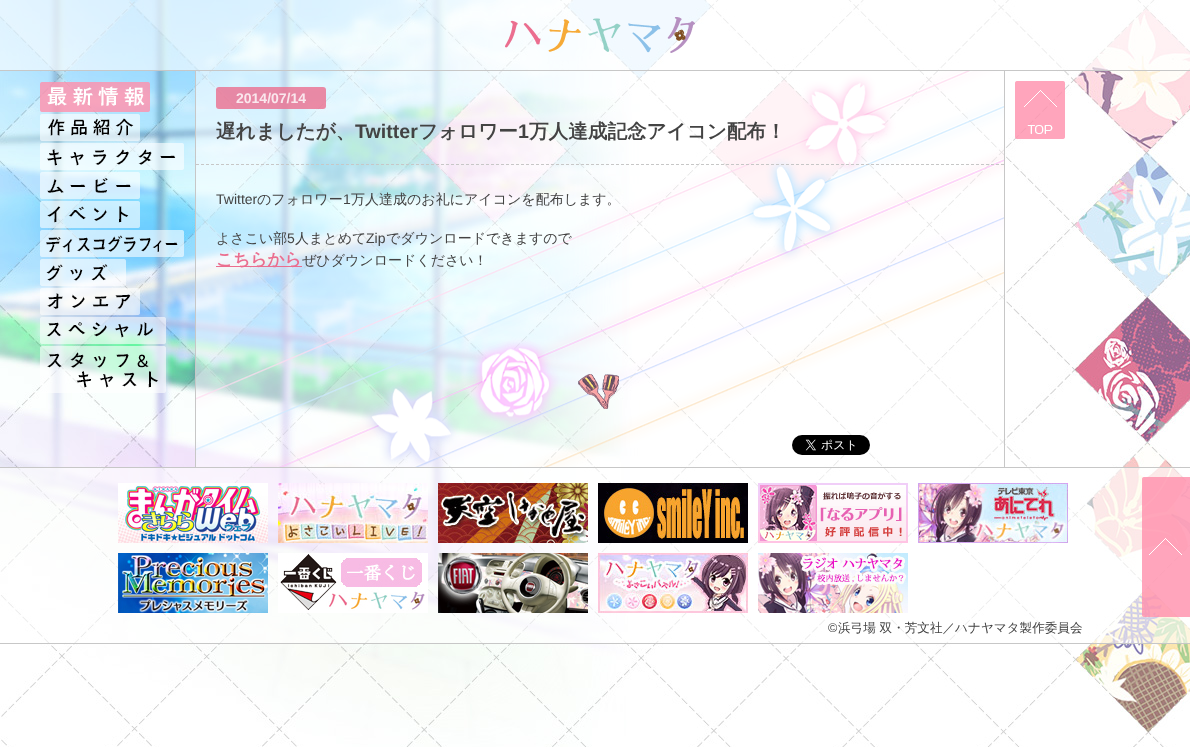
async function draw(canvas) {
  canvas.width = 1190
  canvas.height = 747
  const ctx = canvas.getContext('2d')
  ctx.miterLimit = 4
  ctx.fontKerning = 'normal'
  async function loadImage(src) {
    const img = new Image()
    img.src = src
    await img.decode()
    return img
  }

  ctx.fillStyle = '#fff'
  ctx.fillRect(0, 0, 1190, 747)
  ctx.drawImage(await loadImage('image0.png'), 0, 0, 1190, 747)
  ctx.fillStyle = '#ffffff99'
  ctx.fillRect(0, 0, 1190, 70)
  ctx.fillStyle = '#c7c7c7'
  ctx.fillRect(0, 70, 1190, 1)
  ctx.drawImage(await loadImage('image1.png'), 505, 17, 190, 36)
  ctx.drawImage(await loadImage('image2.png'), 40, 82, 110, 30)
  ctx.drawImage(await loadImage('image3.png'), 40, 114, 100, 27)
  ctx.drawImage(await loadImage('image4.png'), 40, 143, 144, 27)
  ctx.drawImage(await loadImage('image5.png'), 40, 172, 100, 27)
  ctx.drawImage(await loadImage('image6.png'), 40, 201, 100, 27)
  ctx.drawImage(await loadImage('image7.png'), 40, 230, 144, 27)
  ctx.drawImage(await loadImage('image8.png'), 40, 259, 86, 27)
  ctx.drawImage(await loadImage('image9.png'), 40, 288, 100, 27)
  ctx.drawImage(await loadImage('image10.png'), 40, 317, 126, 27)
  ctx.drawImage(await loadImage('image11.png'), 40, 346, 126, 47)
  ctx.fillStyle = '#ffffff80'
  ctx.fillRect(196, 71, 808, 396)
  ctx.fillStyle = '#c7c7c7'
  ctx.fillRect(1004, 71, 1, 396)
  ctx.fillRect(195, 71, 1, 396)
  ctx.drawImage(await loadImage('image12.png'), 196, 71, 808, 396)
  ctx.beginPath()
  ctx.moveTo(196, 164.5)
  ctx.lineTo(1004, 164.5)
  ctx.strokeStyle = '#c7c7c7'
  ctx.setLineDash([3, 2])
  ctx.stroke()
  ctx.fillStyle = '#eb6e8fcc'
  ctx.beginPath()
  ctx.roundRect(216, 87, 110, 22, 3)
  ctx.fill()
  ctx.font = 'bold 14px Liberation Sans'
  ctx.fillStyle = '#fae7ed'
  ctx.fillText('2014/07/14', 236, 103)
  ctx.font = 'bold 19.6px WenQuanYi Zen Hei'
  ctx.fillStyle = '#434343'
  ctx.fillText('遅れましたが、', 216, 138)
  ctx.font = 'bold 19.6px Liberation Sans'
  ctx.fillText('Twitter', 355, 138)
  ctx.font = 'bold 19.6px WenQuanYi Zen Hei'
  ctx.fillText('フォロワー', 418, 138)
  ctx.font = 'bold 19.6px Liberation Sans'
  ctx.fillText('1', 518, 138)
  ctx.font = 'bold 19.6px WenQuanYi Zen Hei'
  ctx.fillText('万人達成記念アイコン配布！', 529, 138)
  ctx.font = '14px Liberation Sans'
  ctx.fillText('Twitter', 216, 204)
  ctx.font = '500 14px WenQuanYi Zen Hei'
  ctx.fillText('のフォロワー', 257, 204)
  ctx.font = '14px Liberation Sans'
  ctx.fillText('1', 343, 204)
  ctx.font = '500 14px WenQuanYi Zen Hei'
  ctx.fillText('万人達成のお礼にアイコンを配布します。', 351, 204)
  ctx.fillText('よさこい部', 216, 243)
  ctx.font = '14px Liberation Sans'
  ctx.fillText('5', 287, 243)
  ctx.font = '500 14px WenQuanYi Zen Hei'
  ctx.fillText('人まとめて', 295, 243)
  ctx.font = '14px Liberation Sans'
  ctx.fillText('Zip', 366, 243)
  ctx.font = '500 14px WenQuanYi Zen Hei'
  ctx.fillText('でダウンロードできますので', 386, 243)
  ctx.fillStyle = '#eb6e8f'
  ctx.fillRect(216, 266, 86, 1)
  ctx.font = 'bold 16.75px WenQuanYi Zen Hei'
  ctx.fillText('こちらから', 216, 265)
  ctx.font = '500 14px WenQuanYi Zen Hei'
  ctx.fillStyle = '#434343'
  ctx.fillText('ぜひダウンロードください！', 302, 265)
  ctx.drawImage(await loadImage('image13.png'), 578, 374, 41, 35)
  ctx.drawImage(await loadImage('image14.png'), 792, 435, 78, 20)
  ctx.drawImage(await loadImage('image15.png'), 1015, 81, 50, 58)
  ctx.fillStyle = '#ffffff99'
  ctx.fillRect(0, 468, 1190, 175)
  ctx.drawImage(await loadImage('image16.png'), 1142, 477, 48, 140)
  ctx.fillStyle = '#c7c7c7'
  ctx.fillRect(0, 467, 1190, 1)
  ctx.fillRect(0, 643, 1190, 1)
  ctx.drawImage(await loadImage('image17.png'), 118, 483, 150, 60)
  ctx.drawImage(await loadImage('image18.png'), 278, 483, 150, 60)
  ctx.drawImage(await loadImage('image19.png'), 438, 483, 150, 60)
  ctx.drawImage(await loadImage('image20.png'), 598, 483, 150, 60)
  ctx.drawImage(await loadImage('image21.png'), 758, 483, 150, 60)
  ctx.drawImage(await loadImage('image22.png'), 918, 483, 150, 60)
  ctx.drawImage(await loadImage('image23.png'), 118, 553, 150, 60)
  ctx.drawImage(await loadImage('image24.png'), 278, 553, 150, 60)
  ctx.drawImage(await loadImage('image25.png'), 438, 553, 150, 60)
  ctx.drawImage(await loadImage('image26.png'), 598, 553, 150, 60)
  ctx.drawImage(await loadImage('image27.png'), 758, 553, 150, 60)
  ctx.font = '12.6px Liberation Sans'
  ctx.fillStyle = '#434343'
  ctx.fillText('©', 828, 632)
  ctx.font = '500 12.6px WenQuanYi Zen Hei'
  ctx.fillText('浜弓場 双・芳文社／ハナヤマタ製作委員会', 838, 632)
}

draw(document.querySelector('canvas'))
